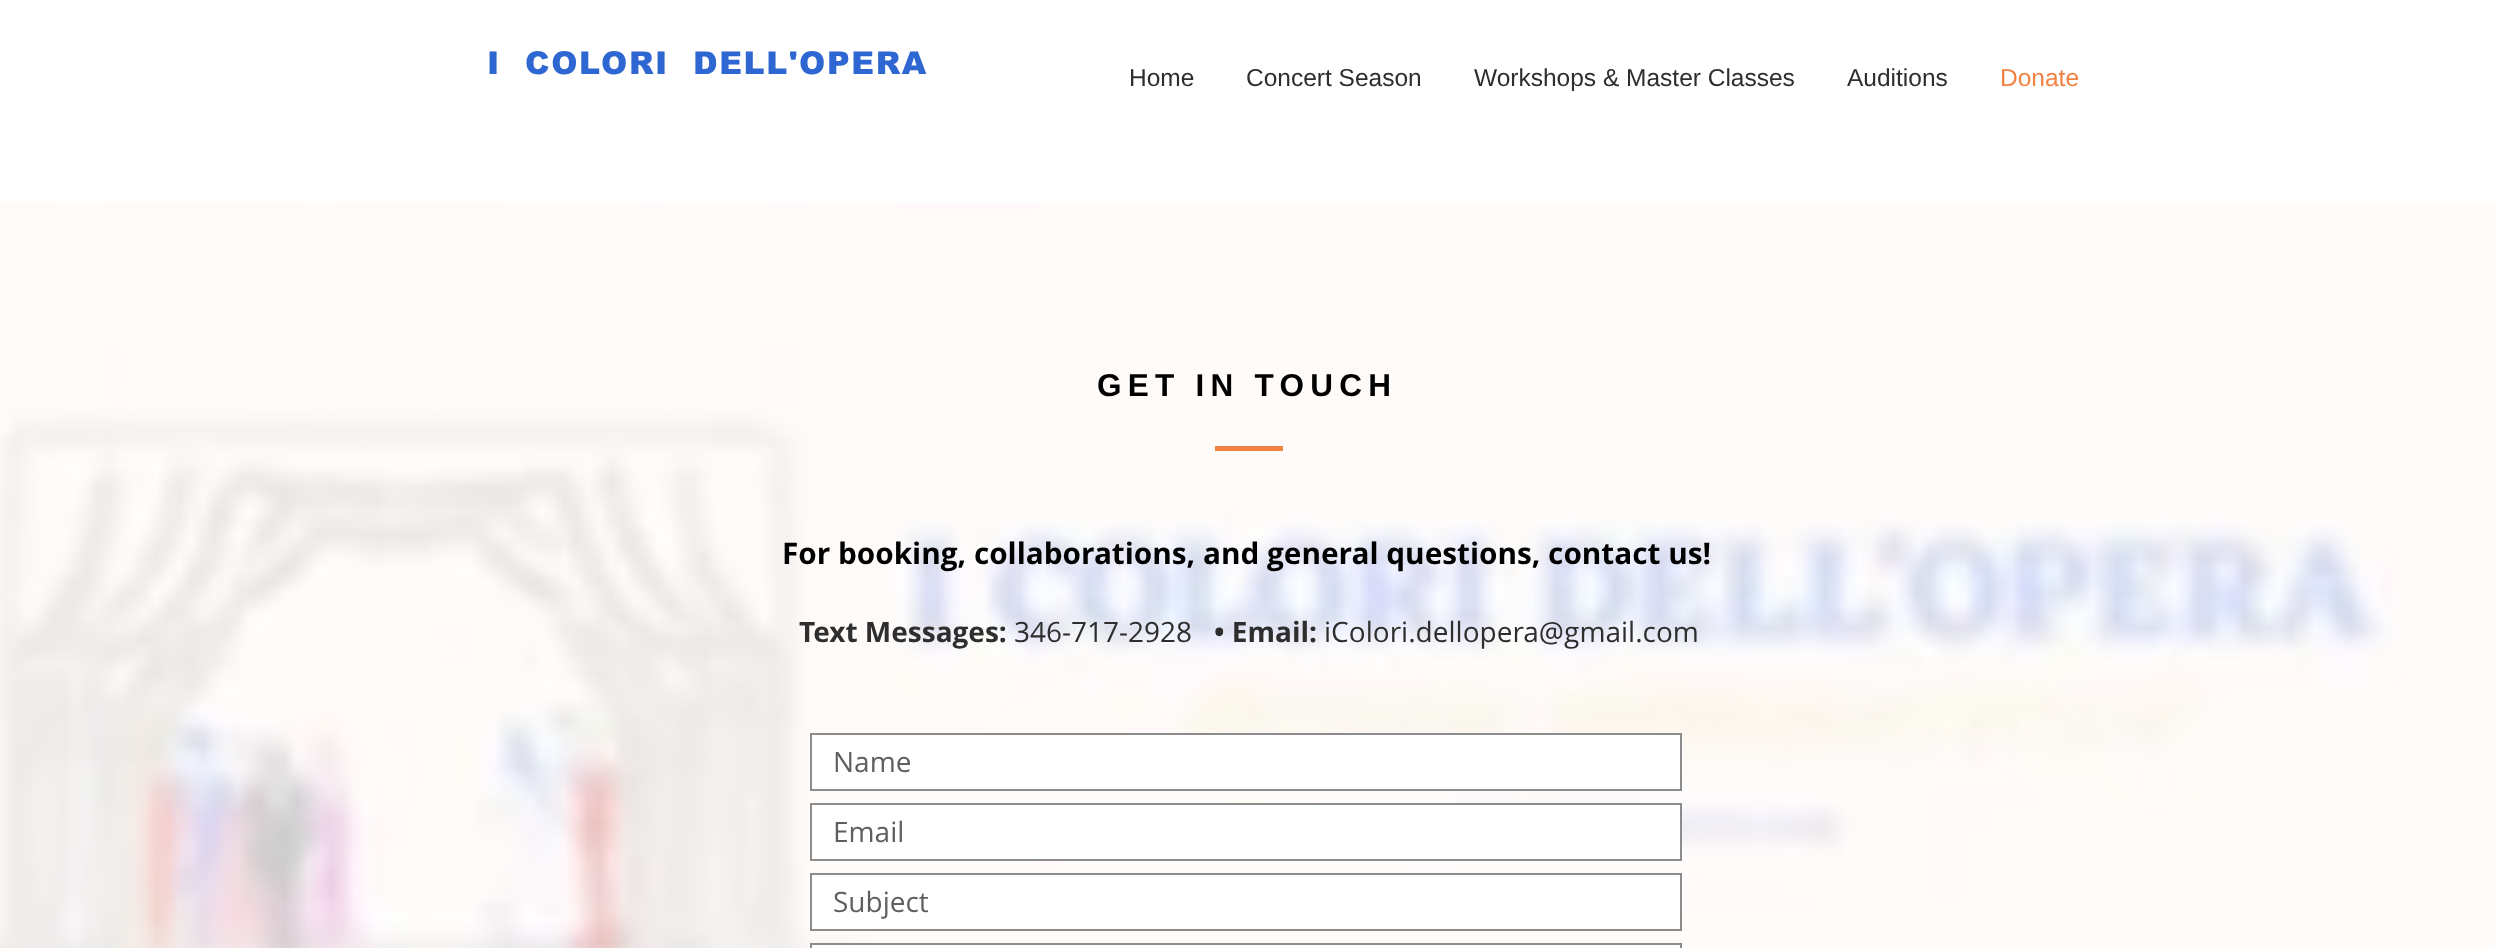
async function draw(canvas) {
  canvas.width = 2495
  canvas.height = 948
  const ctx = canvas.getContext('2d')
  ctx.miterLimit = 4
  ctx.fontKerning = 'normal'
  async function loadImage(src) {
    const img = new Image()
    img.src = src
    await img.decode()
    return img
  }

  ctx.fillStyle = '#fff'
  ctx.fillRect(0, 0, 2495, 948)
  ctx.letterSpacing = '1.6px'
  ctx.font = '900 31.5px arial'
  ctx.fillStyle = '#2e67d1'
  ctx.fillText('I  COLORI  DELL\'OPERA', 487, 74)
  ctx.letterSpacing = '0px'
  ctx.font = '24.5px Liberation Sans'
  ctx.fillStyle = '#2f2e2e'
  ctx.fillText('Home', 1129, 86)
  ctx.fillText('Concert Season', 1246, 86)
  ctx.fillText('Workshops & Master Classes', 1474, 86)
  ctx.fillText('Auditions', 1847, 86)
  ctx.fillStyle = '#f28241'
  ctx.fillText('Donate', 2000, 86)
  ctx.drawImage(await loadImage('image0.png'), 0, 203, 2495, 745)
  ctx.letterSpacing = '6.25px'
  ctx.font = 'bold 31.5px Liberation Sans'
  ctx.fillStyle = '#000'
  ctx.fillText('GET IN TOUCH', 1097, 396)
  ctx.fillStyle = '#f28241'
  ctx.fillRect(1215, 446, 68, 5)
  ctx.letterSpacing = '0px'
  ctx.font = 'bold 29.75px Open Sans'
  ctx.fillStyle = '#000'
  ctx.fillText('For booking, collaborations, and general questions, contact us!', 782, 564)
  ctx.font = 'bold 28px Open Sans'
  ctx.fillStyle = '#2f2e2e'
  ctx.fillText('Text Messages:', 799, 642)
  ctx.font = '28px Open Sans'
  ctx.fillText('346-717-2928', 1014, 642)
  ctx.font = 'bold 28px Open Sans'
  ctx.fillText('• Email:', 1214, 642)
  ctx.font = '28px Open Sans'
  ctx.fillText('iColori.dellopera@gmail.com', 1324, 642)
  ctx.fillStyle = '#fff'
  ctx.beginPath()
  ctx.rect(811, 734, 870, 56)
  ctx.fill()
  ctx.strokeStyle = '#8d8c8c'
  ctx.lineWidth = 2
  ctx.stroke()
  ctx.fillStyle = '#605e5e'
  ctx.fillText('Name', 833, 772)
  ctx.fillStyle = '#fff'
  ctx.beginPath()
  ctx.rect(811, 804, 870, 56)
  ctx.fill()
  ctx.stroke()
  ctx.fillStyle = '#605e5e'
  ctx.fillText('Email', 833, 842)
  ctx.fillStyle = '#fff'
  ctx.beginPath()
  ctx.rect(811, 874, 870, 56)
  ctx.fill()
  ctx.stroke()
  ctx.fillStyle = '#605e5e'
  ctx.fillText('Subject', 833, 912)
  ctx.fillStyle = '#fff'
  ctx.beginPath()
  ctx.rect(811, 944, 870, 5)
  ctx.fill()
  ctx.stroke()
}

draw(document.querySelector('canvas'))
